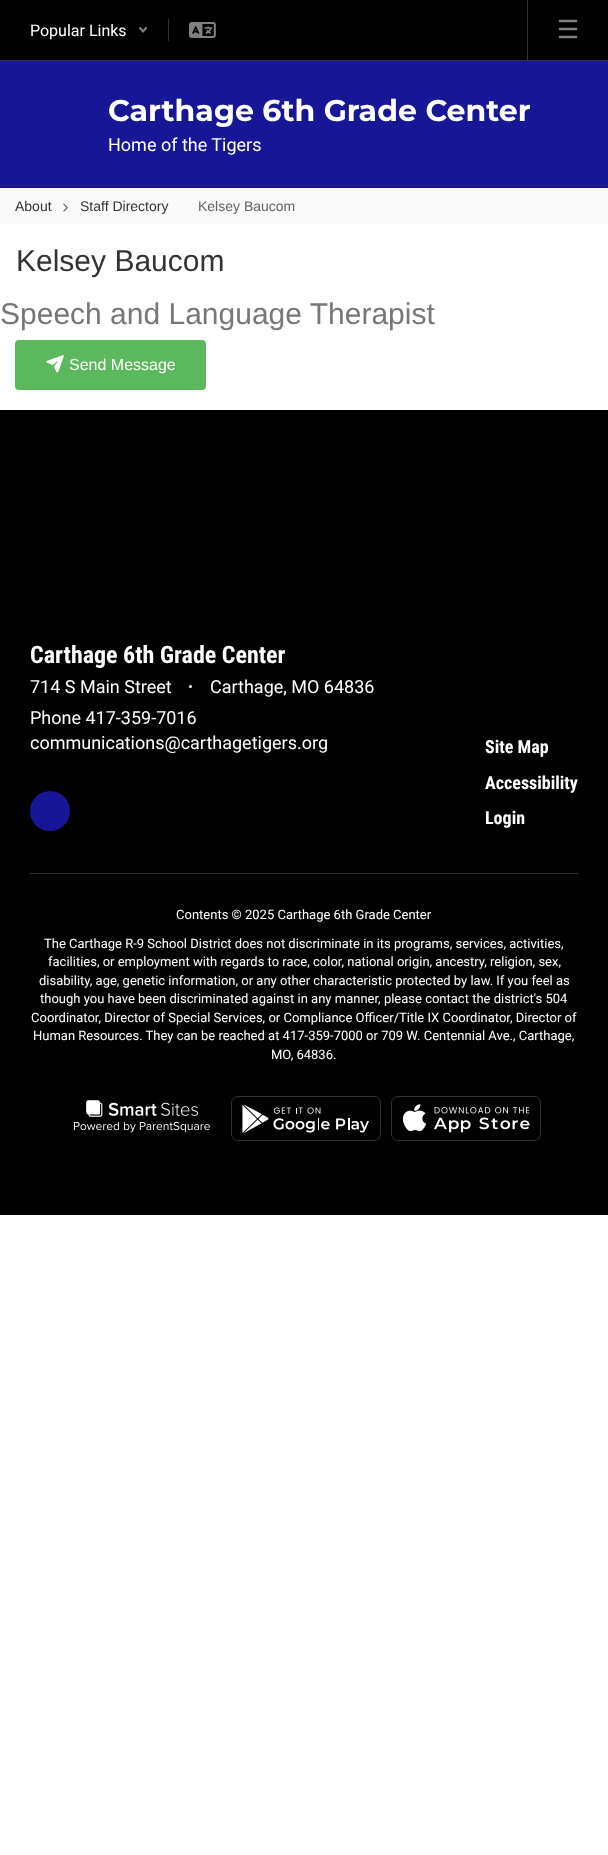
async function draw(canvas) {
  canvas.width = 608
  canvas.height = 1855
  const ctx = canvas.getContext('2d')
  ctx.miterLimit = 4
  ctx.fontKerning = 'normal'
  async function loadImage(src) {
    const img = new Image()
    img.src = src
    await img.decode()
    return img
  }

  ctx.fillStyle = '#fff'
  ctx.fillRect(0, 0, 608, 1855)
  ctx.fillStyle = '#000'
  ctx.fillRect(0, 0, 608, 60)
  ctx.fillStyle = '#333'
  ctx.fillRect(0, 60, 608, 1)
  ctx.font = '16px Roboto'
  ctx.fillStyle = '#fff'
  ctx.fillText('Popular Links', 30, 36)
  ctx.beginPath()
  ctx.moveTo(140, 28)
  ctx.lineTo(143, 31.5)
  ctx.lineTo(146, 28)
  ctx.strokeStyle = '#808080'
  ctx.lineWidth = 2
  ctx.lineCap = 'round'
  ctx.stroke()
  ctx.fillStyle = '#333'
  ctx.fillRect(168, 19, 1, 22)
  ctx.drawImage(await loadImage('image0.png'), 189, 22, 27, 16)
  ctx.fillRect(527, 0, 1, 60)
  ctx.beginPath()
  ctx.moveTo(560, 21)
  ctx.lineTo(576, 21)
  ctx.moveTo(560, 29)
  ctx.lineTo(576, 29)
  ctx.moveTo(560, 37)
  ctx.lineTo(576, 37)
  ctx.lineWidth = 2.5
  ctx.stroke()
  ctx.fillStyle = '#171696'
  ctx.fillRect(0, 61, 608, 126)
  ctx.font = '100 30px Montserrat'
  ctx.fillStyle = '#fff'
  ctx.fillText('Carthage 6th Grade Center', 108, 121)
  ctx.font = '18px Roboto'
  ctx.fillText('Home of the Tigers', 108, 151)
  ctx.fillStyle = '#121278'
  ctx.fillRect(0, 187, 608, 1)
  ctx.fillStyle = '#fafafa'
  ctx.fillRect(0, 188, 608, 36)
  ctx.font = '14px Liberation Sans'
  ctx.fillStyle = '#333'
  ctx.fillText('About', 15, 211)
  ctx.drawImage(await loadImage('image1.png'), 63, 203, 5, 9)
  ctx.fillText('Staff Directory', 80, 211)
  ctx.fillStyle = '#636363'
  ctx.fillText('Kelsey Baucom', 198, 211)
  ctx.font = '30px Liberation Sans'
  ctx.fillStyle = '#333'
  ctx.fillText('Kelsey Baucom', 16, 271)
  ctx.fillStyle = '#777'
  ctx.fillText('Speech and Language Therapist', 0, 324)
  ctx.fillStyle = '#5cb85c'
  ctx.beginPath()
  ctx.roundRect(15, 340, 191, 50, 4)
  ctx.fill()
  ctx.drawImage(await loadImage('image2.png'), 46, 355, 18, 18)
  ctx.font = '16px Liberation Sans'
  ctx.fillStyle = '#fff'
  ctx.fillText('Send Message', 69, 370)
  ctx.fillStyle = '#000'
  ctx.fillRect(0, 410, 608, 805)
  ctx.font = 'bold 24px Roboto Condensed'
  ctx.fillStyle = '#fff'
  ctx.fillText('Carthage 6th Grade Center', 30, 663)
  ctx.font = '18px Roboto'
  ctx.fillText('714 S Main Street', 30, 693)
  ctx.beginPath()
  ctx.arc(190.5, 686.5, 1.5, 0, 2 * Math.PI)
  ctx.fill()
  ctx.fillText('Carthage, MO 64836', 210, 693)
  ctx.fillText('Phone 417-359-7016', 30, 724)
  ctx.fillText('communications@carthagetigers.org', 30, 749)
  ctx.fillStyle = '#171696'
  ctx.beginPath()
  ctx.arc(50, 811, 20, 0, 2 * Math.PI)
  ctx.fill()
  ctx.font = 'bold 18px Roboto Condensed'
  ctx.fillStyle = '#fff'
  ctx.fillText('Site Map', 485, 753)
  ctx.fillText('Accessibility', 485, 789)
  ctx.fillText('Login', 485, 824)
  ctx.fillStyle = '#333'
  ctx.fillRect(30, 873, 548, 1)
  ctx.font = '13px Roboto'
  ctx.fillStyle = '#fff'
  ctx.fillText('Contents © 2025 Carthage 6th Grade Center', 176, 919)
  ctx.fillText('The Carthage R-9 School District does not discriminate in its programs, services, activities,', 44, 948)
  ctx.fillText('facilities, or employment with regards to race, color, national origin, ancestry, religion, sex,', 48, 966)
  ctx.fillText('disability, age, genetic information, or any other characteristic protected by law. If you feel as', 39, 985)
  ctx.fillText('though you have been discriminated against in any manner, please contact the district\'s 504', 40, 1003)
  ctx.fillText('Coordinator, Director of Special Services, or Compliance Officer/Title IX Coordinator, Director of', 31, 1022)
  ctx.fillText('Human Resources. They can be reached at 417-359-7000 or 709 W. Centennial Ave., Carthage,', 33, 1040)
  ctx.fillText('MO, 64836.', 271, 1059)
  ctx.drawImage(await loadImage('image3.png'), 73, 1100, 137, 33)
  ctx.beginPath()
  ctx.roundRect(231.5, 1096.5, 149, 44, 6.5)
  ctx.strokeStyle = '#333'
  ctx.lineWidth = 1
  ctx.stroke()
  ctx.drawImage(await loadImage('image4.png'), 242, 1104, 127, 30)
  ctx.beginPath()
  ctx.roundRect(391.5, 1096.5, 149, 44, 6.5)
  ctx.stroke()
  ctx.drawImage(await loadImage('image5.png'), 402, 1104, 128, 29)
}

draw(document.querySelector('canvas'))
